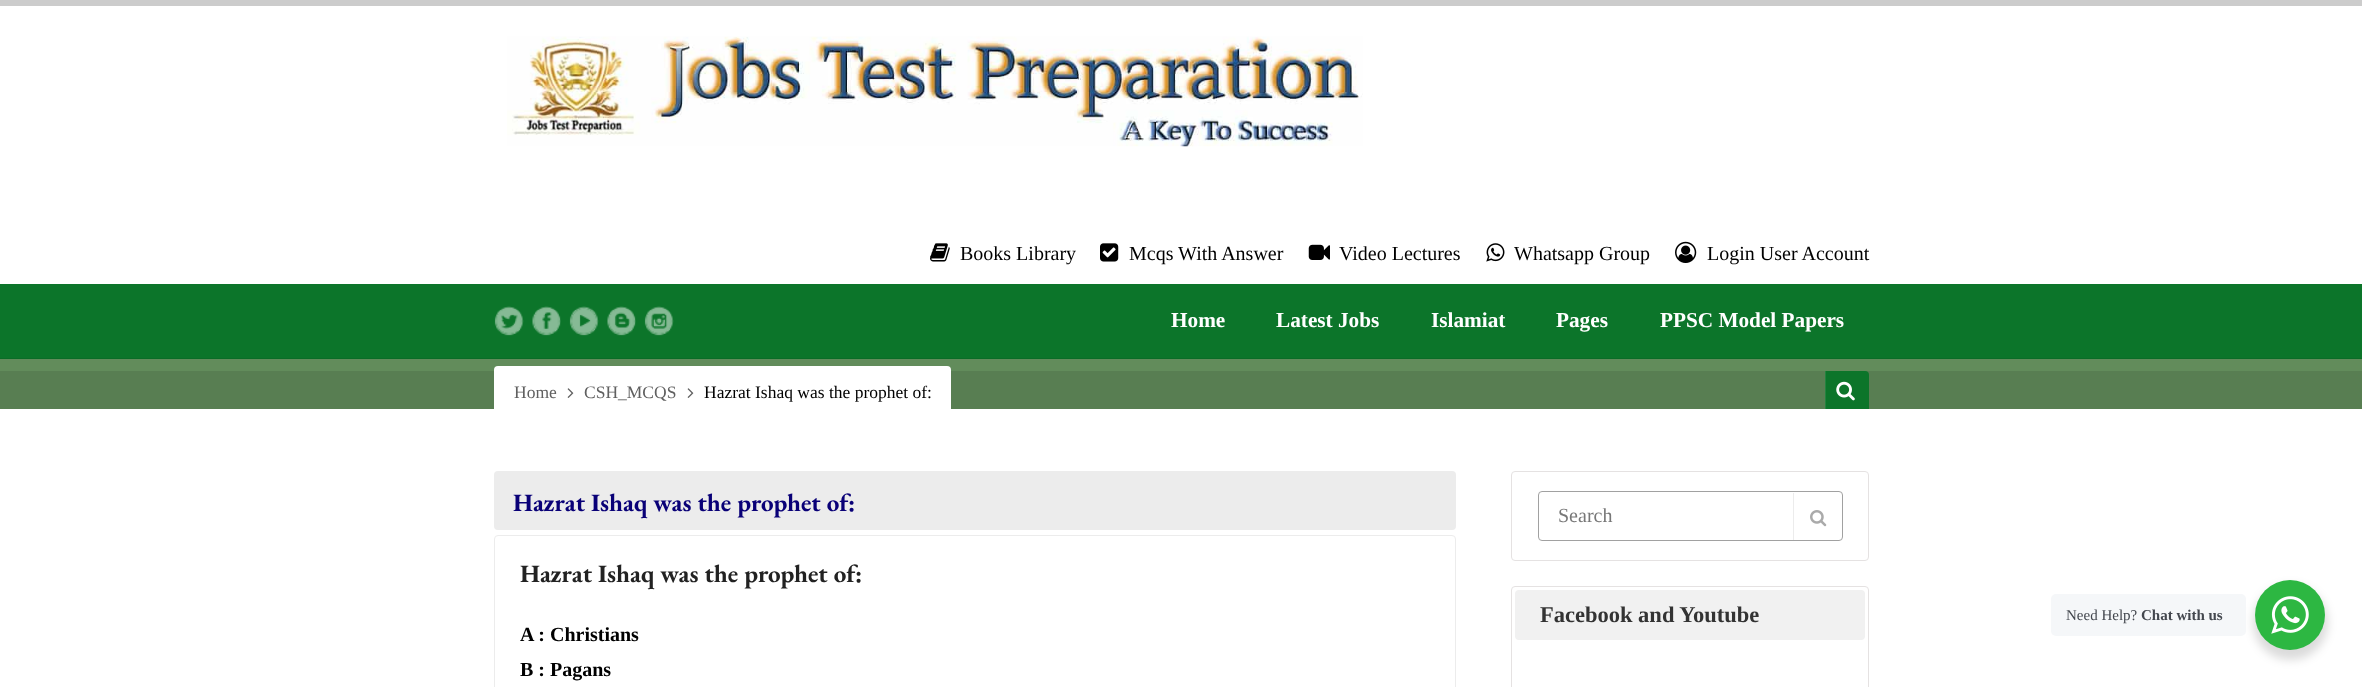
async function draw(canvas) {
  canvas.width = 2362
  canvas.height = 687
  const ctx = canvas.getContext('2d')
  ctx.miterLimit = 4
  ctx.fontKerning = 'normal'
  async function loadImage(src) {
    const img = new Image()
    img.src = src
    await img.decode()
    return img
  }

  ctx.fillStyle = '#fff'
  ctx.fillRect(0, 0, 2362, 687)
  ctx.fillStyle = '#ccc'
  ctx.fillRect(0, 0, 2362, 6)
  ctx.drawImage(await loadImage('image0.png'), 507, 36, 856, 111)
  ctx.drawImage(await loadImage('image1.png'), 930, 243, 20, 19)
  ctx.font = '20px Liberation Serif'
  ctx.fillStyle = '#000'
  ctx.fillText('Books Library', 960, 260)
  ctx.drawImage(await loadImage('image2.png'), 1100, 243, 19, 19)
  ctx.fillText('Mcqs With Answer', 1129, 260)
  ctx.drawImage(await loadImage('image3.png'), 1308, 244, 22, 16)
  ctx.fillText('Video Lectures', 1339, 260)
  ctx.drawImage(await loadImage('image4.png'), 1486, 243, 19, 19)
  ctx.fillText('Whatsapp Group', 1514, 260)
  ctx.drawImage(await loadImage('image5.png'), 1675, 241, 22, 22)
  ctx.fillText('Login User Account', 1707, 260)
  ctx.fillStyle = '#0c752a'
  ctx.fillRect(0, 284, 2362, 74)
  ctx.drawImage(await loadImage('image6.png'), 494, 306, 30, 30)
  ctx.drawImage(await loadImage('image7.png'), 532, 306, 29, 30)
  ctx.drawImage(await loadImage('image8.png'), 569, 306, 30, 30)
  ctx.drawImage(await loadImage('image9.png'), 607, 306, 29, 30)
  ctx.drawImage(await loadImage('image10.png'), 644, 306, 30, 30)
  ctx.font = 'bold 21.25px Liberation Serif'
  ctx.fillStyle = '#fff'
  ctx.fillText('Home', 1171, 327)
  ctx.fillText('Latest Jobs', 1276, 327)
  ctx.fillText('Islamiat', 1431, 327)
  ctx.fillText('Pages', 1556, 327)
  ctx.fillText('PPSC Model Papers', 1660, 327)
  ctx.fillStyle = '#0b6c27'
  ctx.fillRect(0, 358, 2362, 1)
  ctx.fillStyle = '#628c5b'
  ctx.fillRect(0, 359, 2362, 12)
  ctx.fillStyle = '#587e52'
  ctx.fillRect(0, 371, 2362, 38)
  ctx.fillStyle = '#fff'
  ctx.beginPath()
  ctx.roundRect(494, 366, 457, 50, [4, 4, 0, 0])
  ctx.fill()
  ctx.font = '17.5px Liberation Serif'
  ctx.fillStyle = '#606060'
  ctx.fillText('Home', 514, 398)
  ctx.drawImage(await loadImage('image11.png'), 567, 388, 7, 10)
  ctx.fillText('CSH_MCQS', 584, 398)
  ctx.drawImage(await loadImage('image11.png'), 687, 388, 7, 10)
  ctx.fillStyle = '#000'
  ctx.fillText('Hazrat Ishaq was the prophet of:', 704, 398)
  ctx.fillStyle = '#0c752a'
  ctx.beginPath()
  ctx.roundRect(1825, 371, 44, 38, [0, 4, 0, 0])
  ctx.fill()
  ctx.fillStyle = '#24833f'
  ctx.fillRect(1825, 371, 1, 38)
  ctx.drawImage(await loadImage('image12.png'), 1836, 381, 19, 20)
  ctx.fillStyle = '#ececec'
  ctx.beginPath()
  ctx.roundRect(494, 471, 962, 59, 4)
  ctx.fill()
  ctx.font = 'bold 25px EB Garamond'
  ctx.fillStyle = '#090077'
  ctx.fillText('Hazrat Ishaq was the prophet of:', 513, 511)
  ctx.beginPath()
  ctx.roundRect(494.5, 535.5, 961, 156, 3.5)
  ctx.strokeStyle = '#ececec'
  ctx.stroke()
  ctx.fillStyle = '#222'
  ctx.fillText('Hazrat Ishaq was the prophet of:', 520, 582)
  ctx.font = 'bold 20px Liberation Serif'
  ctx.fillStyle = '#000'
  ctx.fillText('A : Christians', 520, 641)
  ctx.fillText('B : Pagans', 520, 676)
  ctx.beginPath()
  ctx.roundRect(1511.5, 471.5, 357, 89, 3.5)
  ctx.strokeStyle = '#e5e2e2'
  ctx.stroke()
  ctx.beginPath()
  ctx.roundRect(1538.5, 491.5, 304, 49, 3.5)
  ctx.strokeStyle = '#a1a1a1'
  ctx.stroke()
  ctx.font = '20px Liberation Serif'
  ctx.fillStyle = '#777'
  ctx.fillText('Search', 1558, 522)
  ctx.fillStyle = '#ececec'
  ctx.fillRect(1793, 493, 1, 47)
  ctx.drawImage(await loadImage('image13.png'), 1810, 510, 17, 17)
  ctx.beginPath()
  ctx.roundRect(1511.5, 586.5, 357, 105, 3.5)
  ctx.strokeStyle = '#e5e2e2'
  ctx.stroke()
  ctx.fillStyle = '#f1f1f1'
  ctx.beginPath()
  ctx.roundRect(1515, 590, 350, 50, 4)
  ctx.fill()
  ctx.font = 'bold 22.5px Liberation Serif'
  ctx.fillStyle = '#333'
  ctx.fillText('Facebook and Youtube', 1540, 622)
  ctx.fillStyle = '#00000024'
  ctx.filter = 'blur(5px)'
  ctx.beginPath()
  ctx.roundRect(2253, 585, 75, 75, 37.5)
  ctx.fill()
  ctx.filter = 'none'
  ctx.fillStyle = '#f5f7f9'
  ctx.beginPath()
  ctx.roundRect(2051, 594, 195, 42, 5)
  ctx.fill()
  ctx.font = '15px Liberation Serif'
  ctx.fillStyle = '#43474e'
  ctx.fillText('Need Help?', 2066, 620)
  ctx.font = 'bold 15px Liberation Serif'
  ctx.fillText('Chat with us', 2141, 620)
  ctx.fillStyle = '#2db742'
  ctx.beginPath()
  ctx.arc(2290, 615, 35, 0, 2 * Math.PI)
  ctx.fill()
  ctx.drawImage(await loadImage('image14.png'), 2271, 596, 38, 38)
}

draw(document.querySelector('canvas'))
